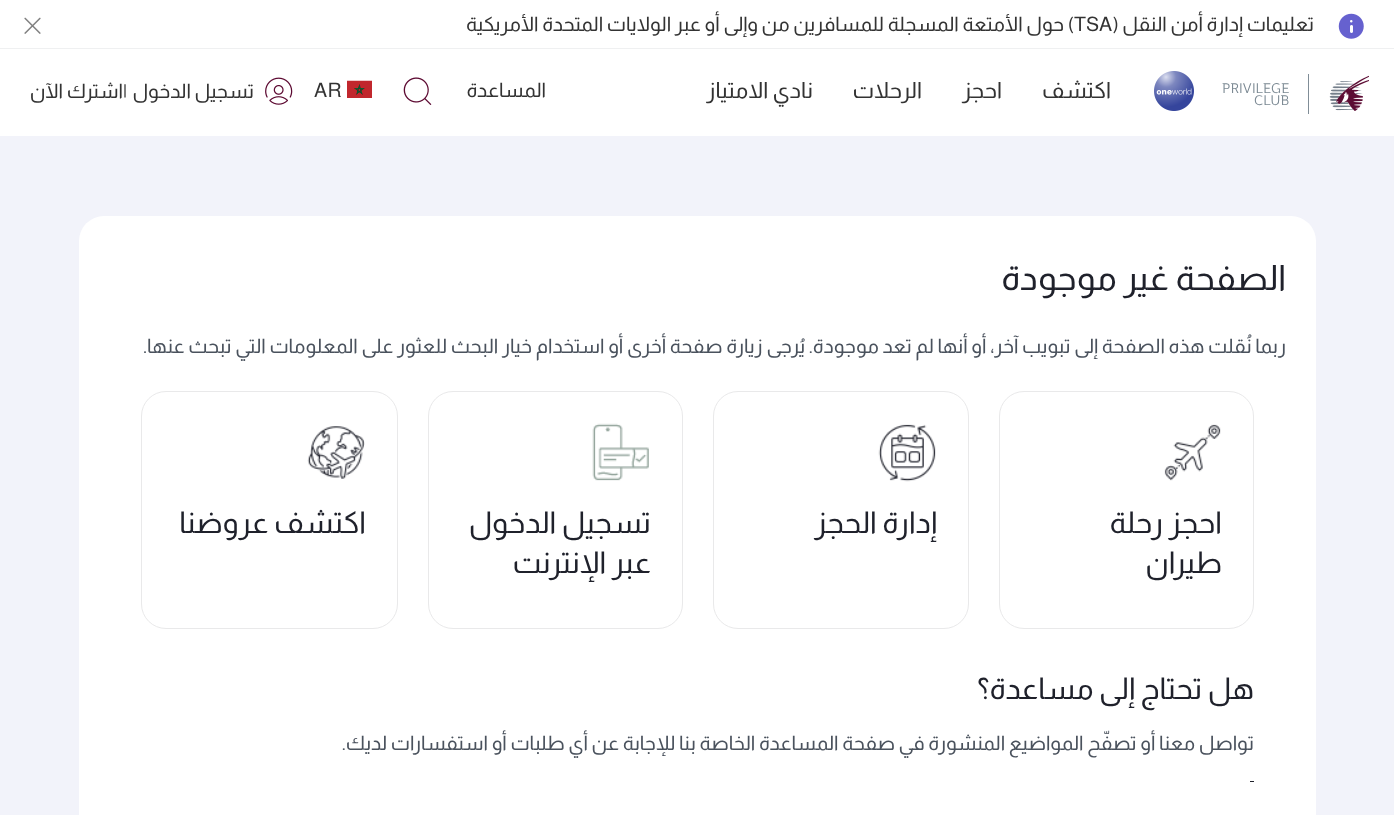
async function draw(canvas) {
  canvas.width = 1394
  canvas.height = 815
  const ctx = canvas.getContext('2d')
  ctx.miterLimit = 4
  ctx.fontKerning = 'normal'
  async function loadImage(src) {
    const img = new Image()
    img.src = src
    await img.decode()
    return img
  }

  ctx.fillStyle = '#f2f3fa'
  ctx.fillRect(0, 0, 1394, 815)
  ctx.fillStyle = '#fff'
  ctx.fillRect(0, 0, 1394, 136)
  ctx.fillStyle = '#eff0f1'
  ctx.fillRect(0, 48, 1394, 1)
  ctx.drawImage(await loadImage('image0.png'), 1338, 13, 26, 26)
  ctx.direction = 'rtl'
  ctx.font = '20px Almarai'
  ctx.fillStyle = '#333'
  ctx.fillText('تعليمات إدارة أمن النقل (', 1314, 31)
  ctx.direction = 'ltr'
  ctx.fillText('TSA', 1074, 31)
  ctx.direction = 'rtl'
  ctx.fillText(') حول الأمتعة المسجلة للمسافرين من وإلى أو عبر الولايات المتحدة الأمريكية', 1074, 31)
  ctx.drawImage(await loadImage('image1.png'), 24, 17, 17, 17)
  ctx.drawImage(await loadImage('image2.png'), 1329, 75, 40, 36)
  ctx.fillStyle = '#808d97'
  ctx.fillRect(1308, 74, 1, 40)
  ctx.direction = 'ltr'
  ctx.font = '300 13.5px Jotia'
  ctx.fillStyle = '#7a8892'
  ctx.fillText('PRIVILEGE', 1222, 93)
  ctx.fillText('CLUB', 1254, 105)
  ctx.drawImage(await loadImage('image3.png'), 1154, 71, 40, 40)
  ctx.direction = 'rtl'
  ctx.font = '22.5px Almarai'
  ctx.fillStyle = '#333'
  ctx.fillText('اكتشف', 1111, 98)
  ctx.fillText('احجز', 1002, 98)
  ctx.fillText('الرحلات', 922, 98)
  ctx.fillText('نادي الامتياز', 813, 98)
  ctx.letterSpacing = '0.5px'
  ctx.font = '20px Almarai'
  ctx.fillText('المساعدة', 546, 97)
  ctx.drawImage(await loadImage('image4.png'), 403, 77, 29, 28)
  ctx.drawImage(await loadImage('image5.png'), 347, 80, 25, 18)
  ctx.direction = 'ltr'
  ctx.fillText('AR', 314, 97)
  ctx.drawImage(await loadImage('image6.png'), 265, 77, 28, 28)
  ctx.letterSpacing = '0px'
  ctx.direction = 'rtl'
  ctx.fillText('تسجيل الدخول', 254, 98)
  ctx.direction = 'ltr'
  ctx.fillText('|', 123, 98)
  ctx.direction = 'rtl'
  ctx.fillText('اشترك الآن', 123, 98)
  ctx.fillStyle = '#fff'
  ctx.beginPath()
  ctx.roundRect(79, 216, 1237, 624, 25)
  ctx.fill()
  ctx.font = '35px Almarai'
  ctx.fillStyle = '#1f212b'
  ctx.fillText('الصفحة غير موجودة', 1286, 290)
  ctx.font = '20px Almarai'
  ctx.fillStyle = '#4a525d'
  ctx.fillText('ربما نُقلت هذه الصفحة إلى تبويب آخر، أو أنها لم تعد موجودة. يُرجى زيارة صفحة أخرى أو استخدام خيار البحث للعثور على المعلومات التي تبحث عنها.', 1286, 353)
  ctx.beginPath()
  ctx.roundRect(999.5, 391.5, 254, 237, 24.5)
  ctx.strokeStyle = '#e9e9ea'
  ctx.stroke()
  ctx.drawImage(await loadImage('image7.png'), 1164, 424, 57, 57)
  ctx.font = '30px Almarai'
  ctx.fillStyle = '#1f212b'
  ctx.fillText('احجز رحلة', 1222, 533)
  ctx.fillText('طيران', 1222, 573)
  ctx.beginPath()
  ctx.roundRect(713.5, 391.5, 255, 237, 24.5)
  ctx.stroke()
  ctx.drawImage(await loadImage('image8.png'), 878, 424, 58, 58)
  ctx.fillText('إدارة الحجز', 937, 533)
  ctx.beginPath()
  ctx.roundRect(428.5, 391.5, 254, 237, 24.5)
  ctx.stroke()
  ctx.drawImage(await loadImage('image9.png'), 592, 423, 57, 58)
  ctx.fillText('تسجيل الدخول', 651, 533)
  ctx.fillText('عبر الإنترنت', 651, 573)
  ctx.beginPath()
  ctx.roundRect(141.5, 391.5, 256, 237, 24.5)
  ctx.stroke()
  ctx.drawImage(await loadImage('image10.png'), 307, 426, 58, 53)
  ctx.fillText('اكتشف عروضنا', 366, 533)
  ctx.fillText('هل تحتاج إلى مساعدة؟', 1254, 699)
  ctx.font = '20px Almarai'
  ctx.fillStyle = '#4a525d'
  ctx.fillText('تواصل معنا أو تصفّح المواضيع المنشورة في صفحة المساعدة الخاصة بنا للإجابة عن أي طلبات أو استفسارات لديك.', 1254, 750)
  ctx.fillStyle = '#1f212b'
  ctx.fillRect(1250, 781, 4, 1)
}

draw(document.querySelector('canvas'))
